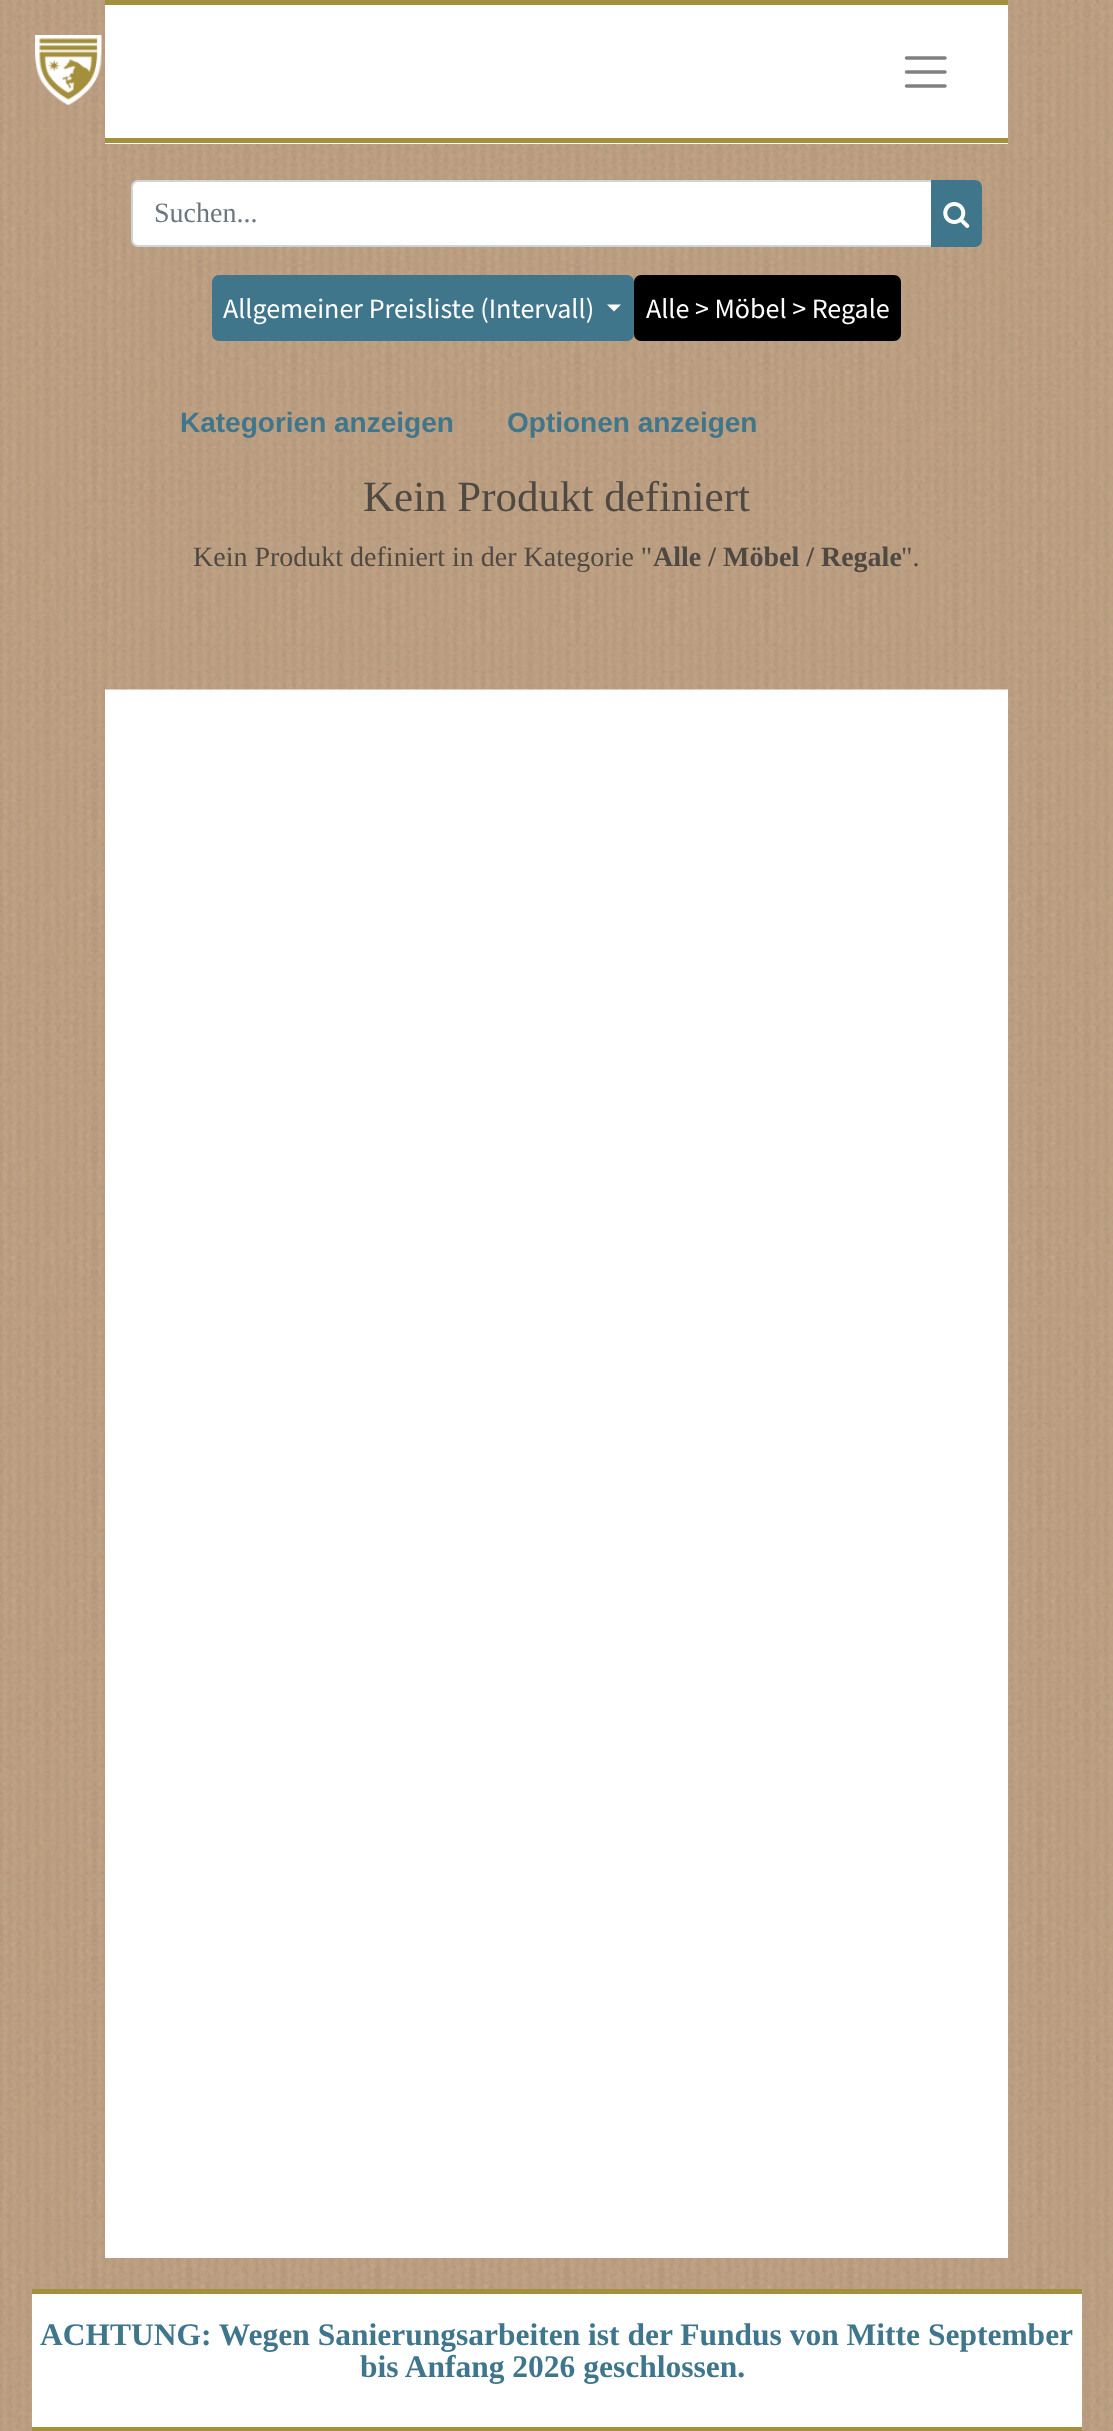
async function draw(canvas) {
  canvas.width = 1113
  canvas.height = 2431
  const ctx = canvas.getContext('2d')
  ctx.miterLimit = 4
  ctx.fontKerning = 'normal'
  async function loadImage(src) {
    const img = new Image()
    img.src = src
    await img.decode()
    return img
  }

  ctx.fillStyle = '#fff'
  ctx.fillRect(0, 0, 1113, 2431)
  ctx.drawImage(await loadImage('image0.png'), 0, 0, 1113, 2431)
  ctx.fillRect(105, 5, 903, 139)
  ctx.fillStyle = '#a48f3c'
  ctx.fillRect(105, 0, 903, 5)
  ctx.fillRect(105, 138, 903, 5)
  ctx.drawImage(await loadImage('image1.png'), 35, 35, 67, 70)
  ctx.beginPath()
  ctx.moveTo(906.5, 58)
  ctx.lineTo(945, 58)
  ctx.moveTo(906.5, 72)
  ctx.lineTo(945, 72)
  ctx.moveTo(906.5, 86)
  ctx.lineTo(945, 86)
  ctx.strokeStyle = '#808080'
  ctx.lineWidth = 3.5
  ctx.lineCap = 'round'
  ctx.stroke()
  ctx.fillStyle = '#fff'
  ctx.fillRect(105, 689, 903, 1569)
  ctx.drawImage(await loadImage('image2.png'), 105, 144, 903, 546)
  ctx.beginPath()
  ctx.roundRect(132, 181, 800, 65, [6, 0, 0, 6])
  ctx.fill()
  ctx.strokeStyle = '#ced4da'
  ctx.lineWidth = 2
  ctx.stroke()
  ctx.font = '28px Liberation Serif'
  ctx.fillStyle = '#6c757d'
  ctx.fillText('Suchen...', 154, 222)
  ctx.fillStyle = '#3f768c'
  ctx.beginPath()
  ctx.roundRect(931, 180, 51, 67, [0, 7, 7, 0])
  ctx.fill()
  ctx.drawImage(await loadImage('image3.png'), 943, 202, 27, 26)
  ctx.beginPath()
  ctx.roundRect(212, 275, 422, 66, 7)
  ctx.fill()
  ctx.font = '28px Source Sans Pro'
  ctx.fillStyle = '#fff'
  ctx.fillText('Allgemeiner Preisliste (Intervall)', 223, 318)
  ctx.beginPath()
  ctx.moveTo(607, 304.5)
  ctx.lineTo(621, 304.5)
  ctx.lineTo(614, 311.5)
  ctx.closePath()
  ctx.fill()
  ctx.fillStyle = '#000'
  ctx.beginPath()
  ctx.roundRect(634, 275, 267, 66, 7)
  ctx.fill()
  ctx.fillStyle = '#fff'
  ctx.fillText('Alle > Möbel > Regale', 646, 318)
  ctx.font = 'bold 28px Liberation Sans'
  ctx.fillStyle = '#3f768c'
  ctx.fillText('Kategorien anzeigen', 180, 432)
  ctx.fillText('Optionen anzeigen', 507, 432)
  ctx.font = '43px Liberation Serif'
  ctx.fillStyle = '#4f4943'
  ctx.fillText('Kein Produkt definiert', 363, 511)
  ctx.font = '28px Liberation Serif'
  ctx.fillText('Kein Produkt definiert in der Kategorie "', 193, 566)
  ctx.font = 'bold 28px Liberation Serif'
  ctx.fillText('Alle / Möbel / Regale', 653, 566)
  ctx.font = '28px Liberation Serif'
  ctx.fillText('".', 901, 566)
  ctx.fillStyle = '#fff'
  ctx.fillRect(32, 2294, 1050, 133)
  ctx.fillStyle = '#a48f3c'
  ctx.fillRect(32, 2289, 1050, 5)
  ctx.fillRect(32, 2427, 1050, 4)
  ctx.font = 'bold 31.5px Liberation Serif'
  ctx.fillStyle = '#3f768c'
  ctx.fillText('ACHTUNG: Wegen Sanierungsarbeiten ist der Fundus von Mitte September', 40, 2345)
  ctx.fillText('bis Anfang 2026 geschlossen.', 360, 2377)
}

draw(document.querySelector('canvas'))
